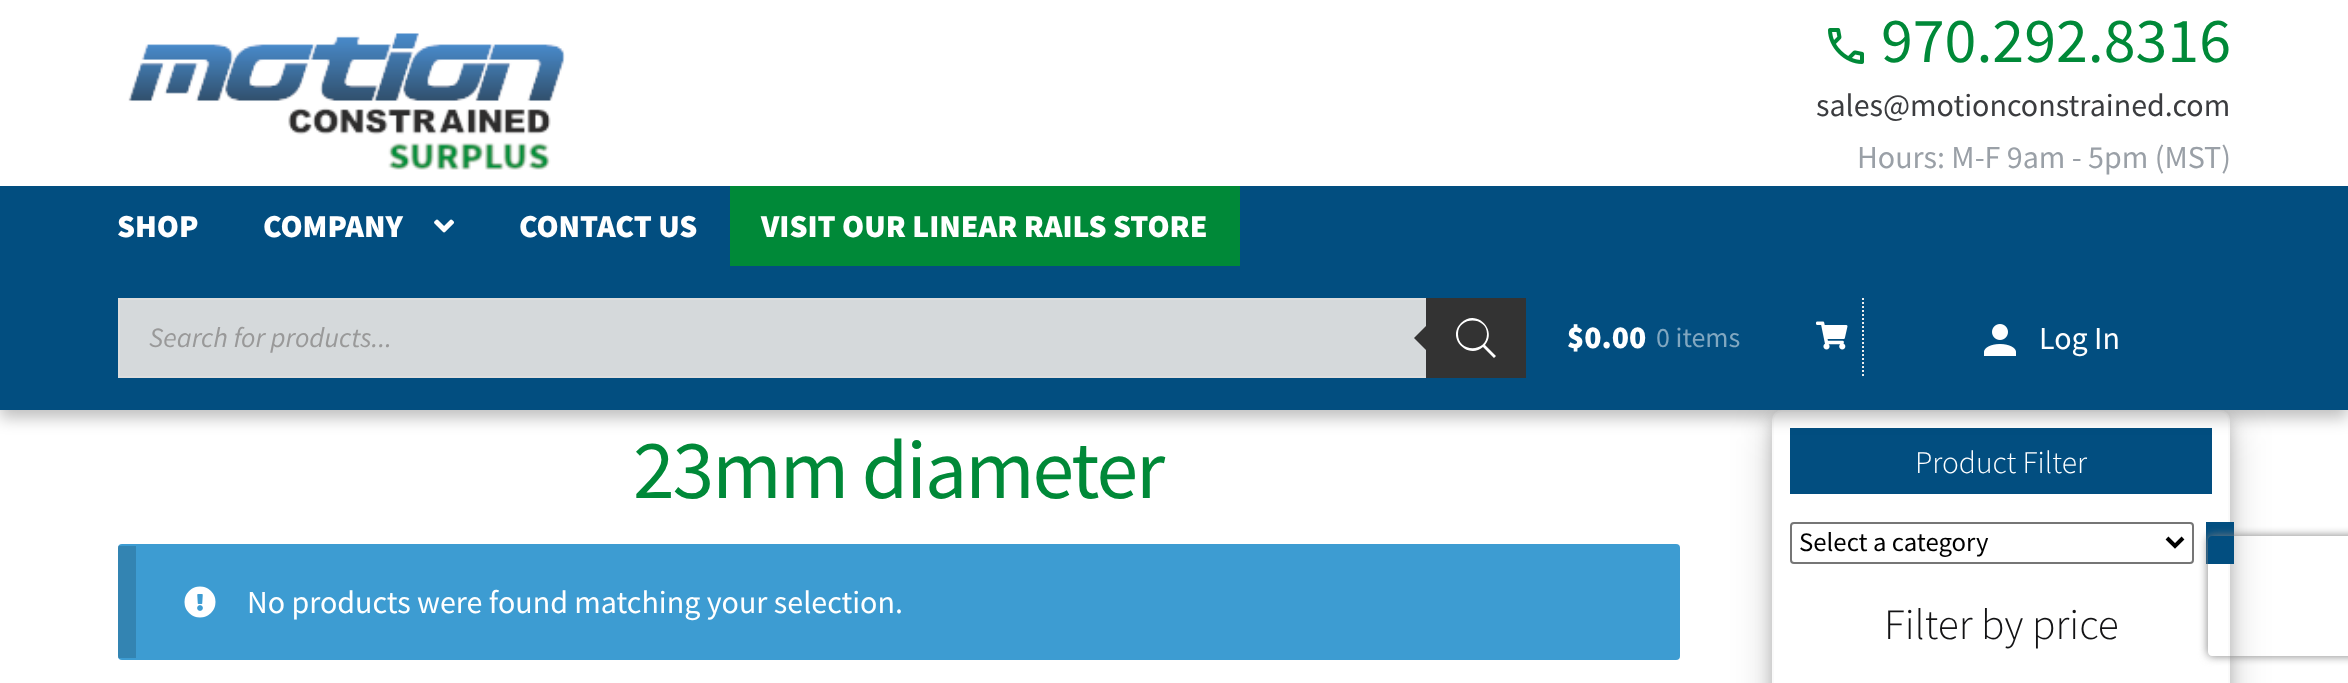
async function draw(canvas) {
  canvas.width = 2348
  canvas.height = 683
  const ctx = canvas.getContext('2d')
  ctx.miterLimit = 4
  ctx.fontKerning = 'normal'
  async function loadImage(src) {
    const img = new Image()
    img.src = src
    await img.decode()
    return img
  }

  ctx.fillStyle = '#fff'
  ctx.fillRect(0, 0, 2348, 683)
  ctx.fillStyle = '#00000030'
  ctx.filter = 'blur(20px)'
  ctx.beginPath()
  ctx.roundRect(1772, 422, 458, 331, 10)
  ctx.fill()
  ctx.filter = 'none'
  ctx.fillStyle = '#00000033'
  ctx.filter = 'blur(8px)'
  ctx.beginPath()
  ctx.roundRect(1772, 418, 458, 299, 10)
  ctx.fill()
  ctx.filter = 'none'
  ctx.fillStyle = '#fff'
  ctx.beginPath()
  ctx.roundRect(1773, 411, 456, 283, 9)
  ctx.fill()
  ctx.strokeStyle = '#fafafa'
  ctx.lineWidth = 2
  ctx.stroke()
  ctx.fillStyle = '#024e80'
  ctx.fillRect(1790, 428, 422, 66)
  ctx.fillStyle = '#00000040'
  ctx.filter = 'blur(8px)'
  ctx.beginPath()
  ctx.rect(0, 8, 2348, 410)
  ctx.fill()
  ctx.filter = 'none'
  ctx.fillStyle = '#fff'
  ctx.fillRect(0, 0, 2348, 186)
  ctx.drawImage(await loadImage('image0.png'), 128, 33, 437, 137)
  ctx.drawImage(await loadImage('image1.png'), 1828, 28, 36, 36)
  ctx.font = '64px Source Sans Pro'
  ctx.fillStyle = '#008938'
  ctx.fillText('970.292.8316', 1881, 62)
  ctx.font = '32px Source Sans Pro'
  ctx.fillStyle = '#3b3c3f'
  ctx.fillText('sales@motionconstrained.com', 1816, 116)
  ctx.fillStyle = '#9aa0a7'
  ctx.fillText('Hours: M-F 9am - 5pm (MST)', 1857, 168)
  ctx.fillStyle = '#024e80'
  ctx.fillRect(0, 186, 2348, 224)
  ctx.font = '900 32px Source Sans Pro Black'
  ctx.fillStyle = '#fff'
  ctx.fillText('SHOP', 117, 237)
  ctx.fillText('COMPANY', 263, 237)
  ctx.drawImage(await loadImage('image2.png'), 434, 219, 20, 14)
  ctx.fillText('CONTACT US', 519, 237)
  ctx.fillStyle = '#008938'
  ctx.fillRect(730, 186, 510, 80)
  ctx.fillStyle = '#fff'
  ctx.fillText('VISIT OUR LINEAR RAILS STORE', 761, 237)
  ctx.fillStyle = '#d5d9db'
  ctx.fillRect(120, 300, 1306, 76)
  ctx.strokeStyle = '#ddd'
  ctx.strokeRect(119, 299, 1406, 78)
  ctx.font = 'italic 28px Source Sans Pro'
  ctx.fillStyle = '#999'
  ctx.fillText('Search for products...', 149, 347)
  ctx.fillStyle = '#333'
  ctx.fillRect(1426, 298, 100, 80)
  ctx.beginPath()
  ctx.moveTo(1430, 322)
  ctx.lineTo(1430, 354)
  ctx.lineTo(1414, 338)
  ctx.closePath()
  ctx.fill()
  ctx.fillStyle = '#fff'
  ctx.beginPath()
  ctx.moveTo(1496, 356)
  ctx.lineTo(1485, 345)
  ctx.bezierCurveTo(1498, 330, 1476, 308, 1461, 323)
  ctx.bezierCurveTo(1446, 338, 1468, 360, 1483, 347)
  ctx.lineTo(1494, 358)
  ctx.closePath()
  ctx.moveTo(1458, 334)
  ctx.bezierCurveTo(1458, 316, 1487, 316, 1487, 334)
  ctx.bezierCurveTo(1487, 353, 1458, 353, 1458, 334)
  ctx.closePath()
  ctx.fill()
  ctx.font = '900 32px Source Sans Pro Black'
  ctx.fillText('$0.00', 1567, 348)
  ctx.font = '28px Source Sans Pro'
  ctx.fillStyle = '#81a7c0'
  ctx.fillText('0 items', 1656, 347)
  ctx.drawImage(await loadImage('image3.png'), 1816, 321, 32, 29)
  ctx.beginPath()
  ctx.moveTo(1863, 298)
  ctx.lineTo(1863, 378)
  ctx.strokeStyle = '#eee'
  ctx.setLineDash([2, 2])
  ctx.stroke()
  ctx.drawImage(await loadImage('image4.png'), 1984, 324, 32, 32)
  ctx.font = '32px Source Sans Pro'
  ctx.fillStyle = '#fff'
  ctx.fillText('Log In', 2039, 349)
  ctx.letterSpacing = '-2px'
  ctx.font = '83.75px Source Sans Pro'
  ctx.fillStyle = '#008938'
  ctx.fillText('23mm diameter', 633, 498)
  ctx.fillStyle = '#3d9cd2'
  ctx.beginPath()
  ctx.roundRect(118, 544, 1562, 116, 4)
  ctx.fill()
  ctx.fillStyle = '#00000026'
  ctx.fillRect(118, 546, 18, 112)
  ctx.drawImage(await loadImage('image5.png'), 184, 586, 32, 32)
  ctx.letterSpacing = '0px'
  ctx.font = '32px Source Sans Pro'
  ctx.fillStyle = '#fff'
  ctx.fillText('No products were found matching your selection.', 247, 613)
  ctx.font = '300 31.5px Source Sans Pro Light'
  ctx.fillText('Product Filter', 1915, 473)
  ctx.beginPath()
  ctx.roundRect(1791, 523, 402, 40, 3)
  ctx.strokeStyle = '#767676'
  ctx.setLineDash([])
  ctx.stroke()
  ctx.beginPath()
  ctx.moveTo(2167, 538)
  ctx.lineTo(2175, 546)
  ctx.lineTo(2183, 538)
  ctx.strokeStyle = '#000'
  ctx.lineWidth = 4
  ctx.stroke()
  ctx.font = '26.75px Source Sans Pro'
  ctx.fillStyle = '#000'
  ctx.fillText('Select a category', 1799, 551)
  ctx.fillStyle = '#024e80'
  ctx.fillRect(2206, 522, 28, 42)
  ctx.font = '300 43.25px Source Sans Pro Light'
  ctx.fillStyle = '#131315'
  ctx.fillText('Filter by price', 1884, 639)
  ctx.save()
  ctx.beginPath()
  ctx.moveTo(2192, 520)
  ctx.lineTo(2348, 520)
  ctx.lineTo(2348, 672)
  ctx.lineTo(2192, 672)
  ctx.closePath()
  ctx.moveTo(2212, 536)
  ctx.lineTo(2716, 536)
  ctx.bezierCurveTo(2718, 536, 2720, 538, 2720, 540)
  ctx.lineTo(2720, 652)
  ctx.bezierCurveTo(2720, 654, 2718, 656, 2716, 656)
  ctx.lineTo(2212, 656)
  ctx.bezierCurveTo(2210, 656, 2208, 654, 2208, 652)
  ctx.lineTo(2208, 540)
  ctx.bezierCurveTo(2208, 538, 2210, 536, 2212, 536)
  ctx.closePath()
  ctx.clip('evenodd')
  ctx.fillStyle = '#808080'
  ctx.filter = 'blur(5px)'
  ctx.beginPath()
  ctx.roundRect(2208, 536, 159, 120, 4)
  ctx.fill()
  ctx.filter = 'none'
  ctx.restore()
}

draw(document.querySelector('canvas'))
